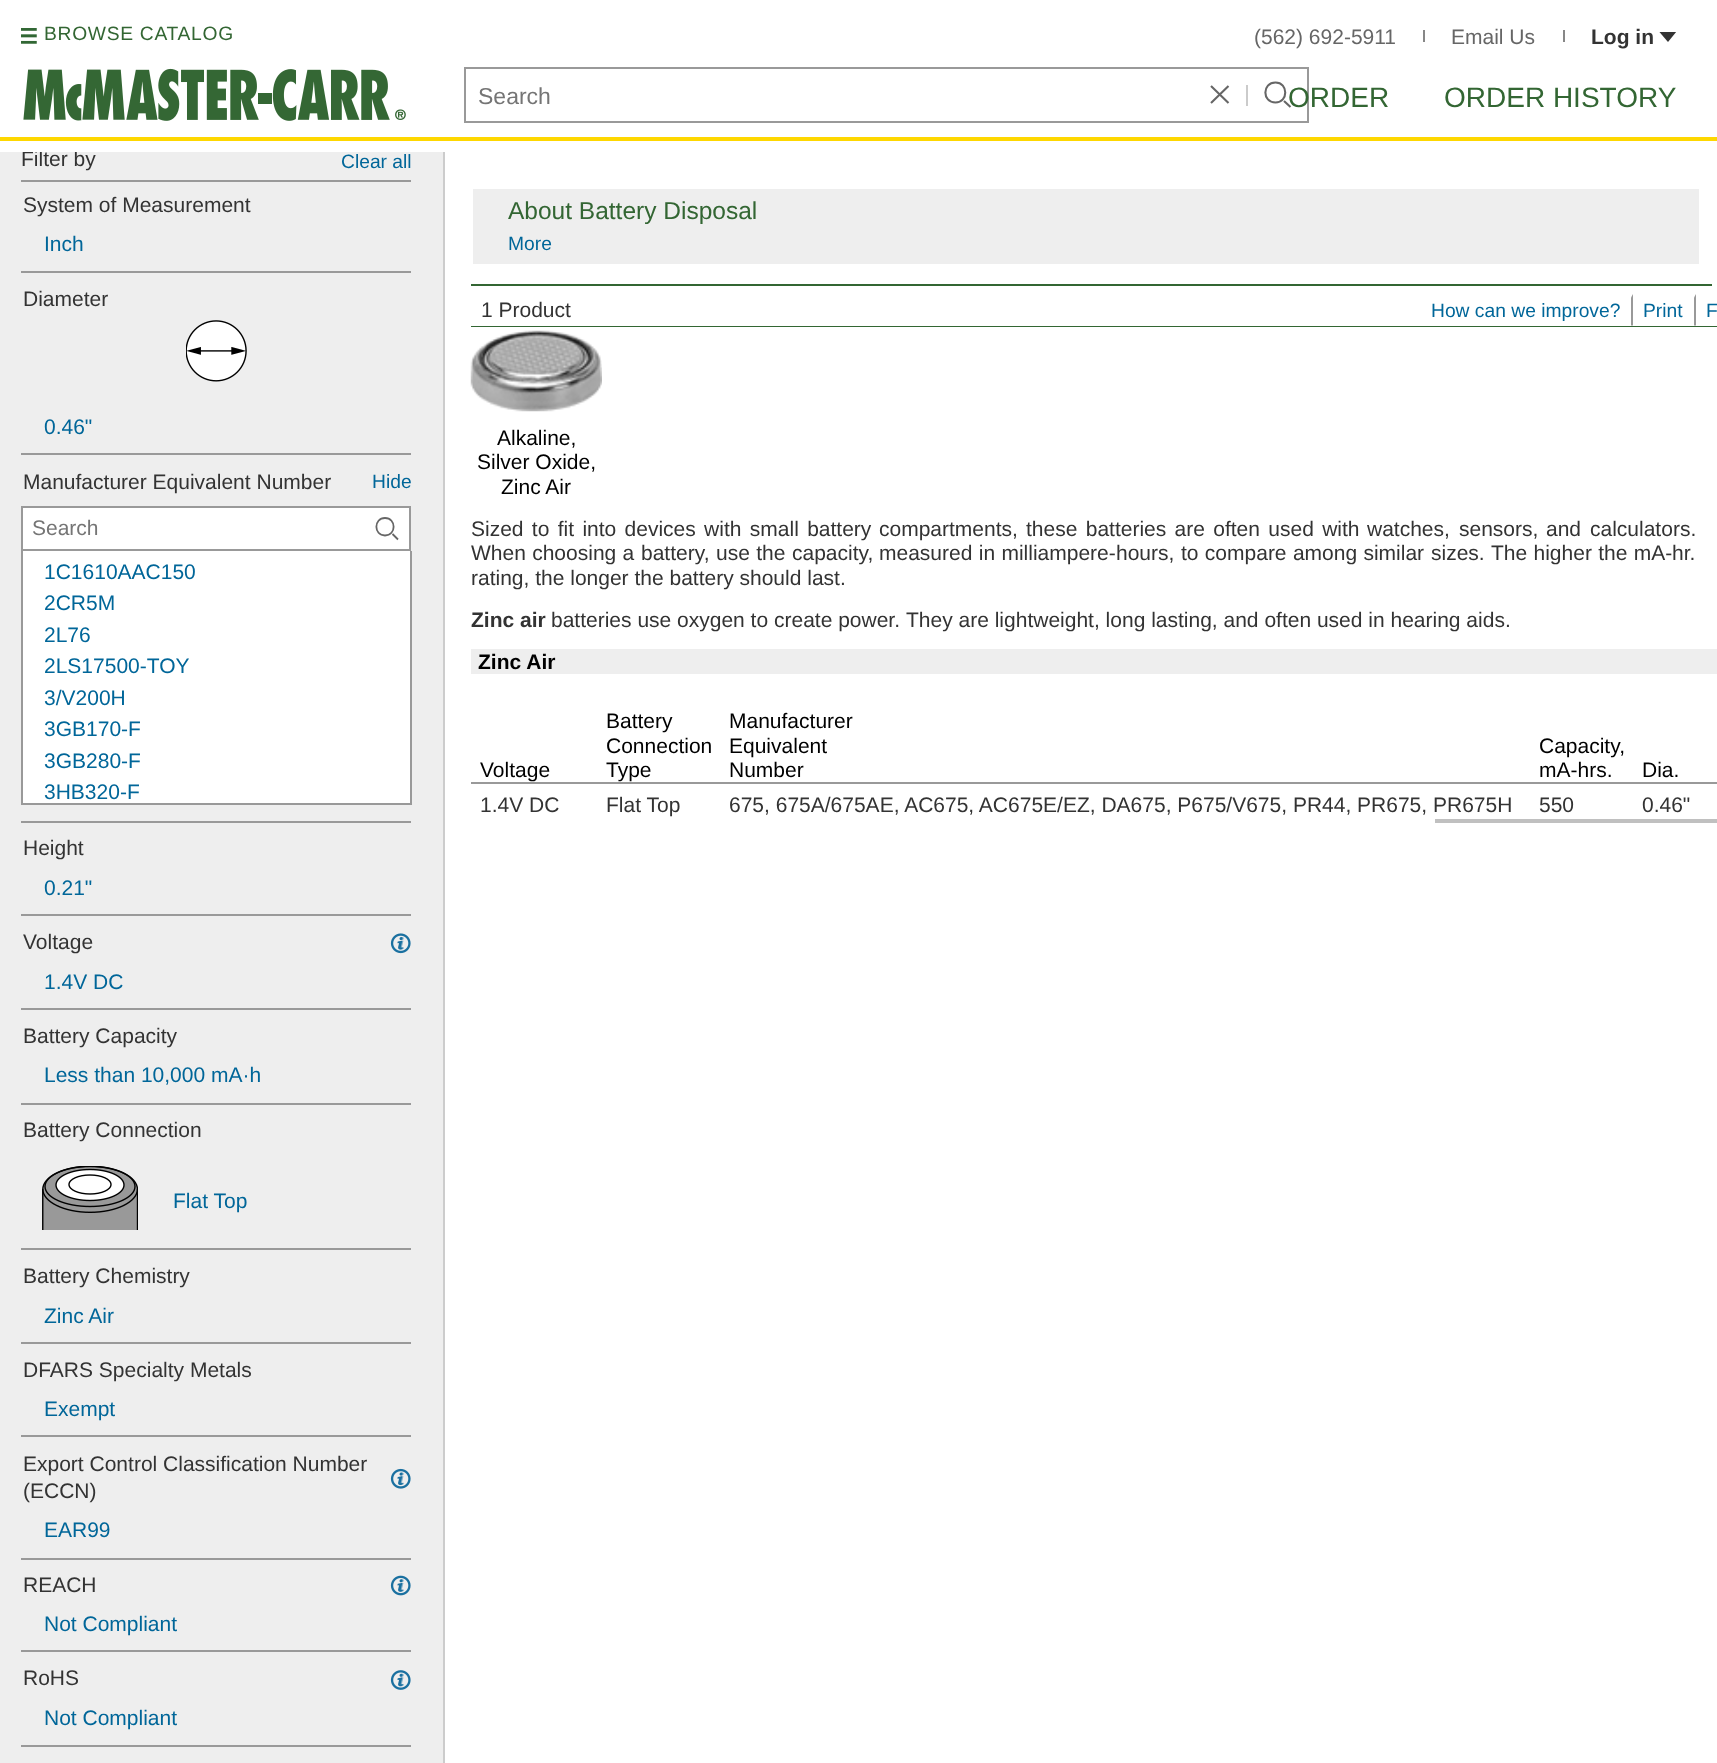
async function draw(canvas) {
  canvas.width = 1717
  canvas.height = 1763
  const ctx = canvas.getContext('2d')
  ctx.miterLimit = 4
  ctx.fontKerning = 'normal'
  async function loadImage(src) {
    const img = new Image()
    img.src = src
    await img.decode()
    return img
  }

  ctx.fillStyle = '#fff'
  ctx.fillRect(0, 0, 1717, 1763)
  ctx.fillStyle = '#eee'
  ctx.fillRect(0, 152, 443, 1611)
  ctx.font = '21px Liberation Sans'
  ctx.fillStyle = '#333'
  ctx.fillText('Filter by', 21, 166)
  ctx.fillStyle = '#fff'
  ctx.beginPath()
  ctx.moveTo(0, 140)
  ctx.lineTo(0, 152)
  ctx.lineTo(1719, 152)
  ctx.lineTo(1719, 12)
  ctx.lineTo(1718, 12)
  ctx.lineTo(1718, 140)
  ctx.closePath()
  ctx.fill()
  ctx.fillStyle = '#fed700'
  ctx.fillRect(0, 137, 1717, 4)
  ctx.drawImage(await loadImage('image0.png'), 21, 28, 16, 16)
  ctx.letterSpacing = '0.7px'
  ctx.font = '19.25px Liberation Sans'
  ctx.fillStyle = '#363'
  ctx.fillText('BROWSE CATALOG', 44, 40)
  ctx.letterSpacing = '0px'
  ctx.font = '21px Liberation Sans'
  ctx.fillStyle = '#666'
  ctx.fillText('(562) 692-5911', 1254, 44)
  ctx.fillStyle = '#878787'
  ctx.fillRect(1423, 30, 2, 12)
  ctx.fillStyle = '#666'
  ctx.fillText('Email Us', 1451, 44)
  ctx.fillStyle = '#878787'
  ctx.fillRect(1563, 30, 2, 12)
  ctx.font = 'bold 21px Liberation Sans'
  ctx.fillStyle = '#333'
  ctx.fillText('Log in', 1591, 44)
  ctx.save()
  ctx.beginPath()
  ctx.rect(1659, 32, 18, 10)
  ctx.clip()
  ctx.beginPath()
  ctx.moveTo(1659, 31.5)
  ctx.lineTo(1668, 42)
  ctx.lineTo(1676.5, 31.5)
  ctx.closePath()
  ctx.fill()
  ctx.restore()
  ctx.drawImage(await loadImage('image1.png'), 23, 68, 383, 53)
  ctx.strokeStyle = '#999'
  ctx.lineWidth = 2
  ctx.strokeRect(465, 68, 843, 54)
  ctx.font = '23px Liberation Sans'
  ctx.fillStyle = '#757575'
  ctx.fillText('Search', 478, 104)
  ctx.beginPath()
  ctx.moveTo(1211, 86)
  ctx.lineTo(1228.5, 103)
  ctx.moveTo(1228.5, 86)
  ctx.lineTo(1211, 103)
  ctx.strokeStyle = '#666'
  ctx.lineWidth = 2.1
  ctx.stroke()
  ctx.fillStyle = '#cbcbcb'
  ctx.fillRect(1246, 85, 2, 21)
  ctx.beginPath()
  ctx.moveTo(1284, 101)
  ctx.lineTo(1290.5, 107)
  ctx.moveTo(1275.5, 102.5)
  ctx.bezierCurveTo(1288.5, 102.5, 1288.5, 82.5, 1275.5, 82.5)
  ctx.bezierCurveTo(1262, 82.5, 1262, 102.5, 1275.5, 102.5)
  ctx.closePath()
  ctx.stroke()
  ctx.font = '28px Liberation Sans'
  ctx.fillStyle = '#363'
  ctx.fillText('ORDER', 1288, 107)
  ctx.fillText('ORDER HISTORY', 1444, 107)
  ctx.fillStyle = '#ccc'
  ctx.fillRect(443, 152, 2, 1611)
  ctx.fillStyle = '#999'
  ctx.fillRect(21, 180, 390, 2)
  ctx.font = '19.25px Liberation Sans'
  ctx.fillStyle = '#069'
  ctx.fillText('Clear all', 341, 168)
  ctx.font = '21px Liberation Sans'
  ctx.fillStyle = '#333'
  ctx.fillText('System of Measurement', 23, 212)
  ctx.fillStyle = '#069'
  ctx.fillText('Inch', 44, 251)
  ctx.fillStyle = '#999'
  ctx.fillRect(21, 271, 390, 2)
  ctx.fillStyle = '#333'
  ctx.fillText('Diameter', 23, 306)
  ctx.drawImage(await loadImage('image2.png'), 186, 320, 61, 62)
  ctx.fillStyle = '#069'
  ctx.fillText('0.46"', 44, 434)
  ctx.fillStyle = '#999'
  ctx.fillRect(21, 453, 390, 2)
  ctx.fillStyle = '#333'
  ctx.fillText('Manufacturer Equivalent Number', 23, 489)
  ctx.font = '19.25px Liberation Sans'
  ctx.fillStyle = '#069'
  ctx.fillText('Hide', 372, 488)
  ctx.fillStyle = '#fff'
  ctx.beginPath()
  ctx.rect(22, 507, 388, 43)
  ctx.fill()
  ctx.strokeStyle = '#999'
  ctx.lineWidth = 2
  ctx.stroke()
  ctx.font = '21px Liberation Sans'
  ctx.fillStyle = '#757575'
  ctx.fillText('Search', 32, 535)
  ctx.beginPath()
  ctx.moveTo(392.5, 534)
  ctx.lineTo(398, 539.5)
  ctx.moveTo(385, 535.5)
  ctx.bezierCurveTo(396.5, 535.5, 396.5, 518, 385, 518)
  ctx.bezierCurveTo(373.5, 518, 373.5, 535.5, 385, 535.5)
  ctx.closePath()
  ctx.strokeStyle = '#666'
  ctx.lineWidth = 1.8
  ctx.stroke()
  ctx.fillStyle = '#fff'
  ctx.fillRect(23, 551, 387, 252)
  ctx.fillStyle = '#999'
  ctx.fillRect(410, 551, 2, 254)
  ctx.fillRect(21, 803, 390, 2)
  ctx.fillRect(21, 551, 2, 254)
  ctx.fillStyle = '#069'
  ctx.fillText('1C1610AAC150', 44, 579)
  ctx.fillText('2CR5M', 44, 610)
  ctx.fillText('2L76', 44, 642)
  ctx.fillText('2LS17500-TOY', 44, 673)
  ctx.fillText('3/V200H', 44, 705)
  ctx.fillText('3GB170-F', 44, 736)
  ctx.fillText('3GB280-F', 44, 768)
  ctx.fillText('3HB320-F', 44, 799)
  ctx.fillStyle = '#999'
  ctx.fillRect(21, 821, 390, 2)
  ctx.fillStyle = '#333'
  ctx.fillText('Height', 23, 855)
  ctx.fillStyle = '#069'
  ctx.fillText('0.21"', 44, 895)
  ctx.fillStyle = '#999'
  ctx.fillRect(21, 914, 390, 2)
  ctx.fillStyle = '#333'
  ctx.fillText('Voltage', 23, 949)
  ctx.drawImage(await loadImage('image3.png'), 390, 933, 21, 21)
  ctx.fillStyle = '#069'
  ctx.fillText('1.4V DC', 44, 989)
  ctx.fillStyle = '#999'
  ctx.fillRect(21, 1008, 390, 2)
  ctx.fillStyle = '#333'
  ctx.fillText('Battery Capacity', 23, 1043)
  ctx.fillStyle = '#069'
  ctx.fillText('Less than 10,000 mA·h', 44, 1082)
  ctx.fillStyle = '#999'
  ctx.fillRect(21, 1103, 390, 2)
  ctx.fillStyle = '#333'
  ctx.fillText('Battery Connection', 23, 1137)
  ctx.drawImage(await loadImage('image4.png'), 42, 1166, 96, 64)
  ctx.fillStyle = '#069'
  ctx.fillText('Flat Top', 173, 1208)
  ctx.fillStyle = '#999'
  ctx.fillRect(21, 1248, 390, 2)
  ctx.fillStyle = '#333'
  ctx.fillText('Battery Chemistry', 23, 1283)
  ctx.fillStyle = '#069'
  ctx.fillText('Zinc Air', 44, 1323)
  ctx.fillStyle = '#999'
  ctx.fillRect(21, 1342, 390, 2)
  ctx.fillStyle = '#333'
  ctx.fillText('DFARS Specialty Metals', 23, 1377)
  ctx.fillStyle = '#069'
  ctx.fillText('Exempt', 44, 1416)
  ctx.fillStyle = '#999'
  ctx.fillRect(21, 1435, 390, 2)
  ctx.fillStyle = '#333'
  ctx.fillText('Export Control Classification Number', 23, 1471)
  ctx.fillText('(ECCN)', 23, 1498)
  ctx.drawImage(await loadImage('image5.png'), 390, 1468, 21, 21)
  ctx.fillStyle = '#069'
  ctx.fillText('EAR99', 44, 1537)
  ctx.fillStyle = '#999'
  ctx.fillRect(21, 1558, 390, 2)
  ctx.fillStyle = '#333'
  ctx.fillText('REACH', 23, 1592)
  ctx.drawImage(await loadImage('image6.png'), 390, 1575, 21, 21)
  ctx.fillStyle = '#069'
  ctx.fillText('Not Compliant', 44, 1631)
  ctx.fillStyle = '#999'
  ctx.fillRect(21, 1650, 390, 2)
  ctx.fillStyle = '#333'
  ctx.fillText('RoHS', 23, 1685)
  ctx.drawImage(await loadImage('image7.png'), 390, 1670, 21, 20)
  ctx.fillStyle = '#069'
  ctx.fillText('Not Compliant', 44, 1725)
  ctx.fillStyle = '#999'
  ctx.fillRect(21, 1745, 390, 2)
  ctx.fillStyle = '#eee'
  ctx.fillRect(473, 189, 1226, 75)
  ctx.font = '24.5px Liberation Sans'
  ctx.fillStyle = '#363'
  ctx.fillText('About Battery Disposal', 508, 219)
  ctx.font = '19.25px Liberation Sans'
  ctx.fillStyle = '#069'
  ctx.fillText('More', 508, 250)
  ctx.fillStyle = '#363'
  ctx.fillRect(471, 284, 1241, 2)
  ctx.drawImage(await loadImage('image8.png'), 470, 330, 132, 82)
  ctx.font = '21px Liberation Sans'
  ctx.fillStyle = '#000'
  ctx.fillText('Alkaline,', 497, 445)
  ctx.fillText('Silver Oxide,', 477, 469)
  ctx.fillText('Zinc Air', 501, 494)
  ctx.wordSpacing = '2.5px'
  ctx.fillStyle = '#333'
  ctx.fillText('Sized to fit into devices with small battery', 471, 536)
  ctx.wordSpacing = '0px'
  ctx.fillText('compartments,', 879, 536)
  ctx.wordSpacing = '2.5px'
  ctx.fillText('these batteries are often used with', 1026, 536)
  ctx.wordSpacing = '0px'
  ctx.fillText('watches,', 1367, 536)
  ctx.fillText('sensors,', 1459, 536)
  ctx.fillText('and', 1546, 536)
  ctx.fillText('calculators.', 1590, 536)
  ctx.wordSpacing = '0.5px'
  ctx.fillText('When choosing a', 471, 560)
  ctx.wordSpacing = '0px'
  ctx.fillText('battery,', 641, 560)
  ctx.wordSpacing = '0.5px'
  ctx.fillText('use the', 716, 560)
  ctx.wordSpacing = '0px'
  ctx.fillText('capacity,', 792, 560)
  ctx.wordSpacing = '0.5px'
  ctx.fillText('measured in milliampere-', 879, 560)
  ctx.wordSpacing = '0px'
  ctx.fillText('hours,', 1116, 560)
  ctx.wordSpacing = '0.5px'
  ctx.fillText('to compare among similar', 1181, 560)
  ctx.wordSpacing = '0px'
  ctx.fillText('sizes.', 1431, 560)
  ctx.wordSpacing = '0.5px'
  ctx.fillText('The higher the mA-', 1491, 560)
  ctx.wordSpacing = '0px'
  ctx.fillText('hr.', 1672, 560)
  ctx.fillText('rating, the longer the battery should last.', 471, 585)
  ctx.font = 'bold 21px Liberation Sans'
  ctx.fillText('Zinc air', 471, 627)
  ctx.font = '21px Liberation Sans'
  ctx.fillText('batteries use oxygen to create power.', 551, 627)
  ctx.fillText('They are lightweight, long lasting, and often used in hearing aids.', 906, 627)
  ctx.fillStyle = '#eee'
  ctx.fillRect(471, 649, 1246, 25)
  ctx.font = 'bold 21px Liberation Sans'
  ctx.fillStyle = '#000'
  ctx.fillText('Zinc Air', 478, 669)
  ctx.fillStyle = '#999'
  ctx.fillRect(471, 782, 1246, 2)
  ctx.font = '21px Liberation Sans'
  ctx.fillStyle = '#000'
  ctx.fillText('Voltage', 480, 777)
  ctx.fillText('Battery', 606, 728)
  ctx.fillText('Connection', 606, 753)
  ctx.fillText('Type', 606, 777)
  ctx.fillText('Manufacturer', 729, 728)
  ctx.fillText('Equivalent', 729, 753)
  ctx.fillText('Number', 729, 777)
  ctx.fillText('Capacity,', 1539, 753)
  ctx.fillText('mA-hrs.', 1539, 777)
  ctx.fillText('Dia.', 1642, 777)
  ctx.fillStyle = '#333'
  ctx.fillText('1.4V DC', 480, 812)
  ctx.fillText('Flat Top', 606, 812)
  ctx.fillText('675, 675A/675AE, AC675, AC675E/EZ, DA675, P675/V675, PR44, PR675, PR675H', 729, 812)
  ctx.fillText('550', 1539, 812)
  ctx.fillText('0.46"', 1642, 812)
  ctx.fillStyle = '#c0c0c0'
  ctx.fillRect(1435, 819, 282, 4)
  ctx.fillStyle = '#363'
  ctx.fillRect(471, 326, 1246, 1)
  ctx.fillStyle = '#333'
  ctx.fillText('1 Product', 481, 317)
  ctx.fillStyle = '#999'
  ctx.beginPath()
  ctx.moveTo(1633, 294)
  ctx.lineTo(1633, 325.5)
  ctx.lineTo(1631, 325.5)
  ctx.lineTo(1631, 297.5)
  ctx.closePath()
  ctx.fill()
  ctx.font = '19.25px Liberation Sans'
  ctx.fillStyle = '#069'
  ctx.fillText('How can we improve?', 1431, 317)
  ctx.fillStyle = '#999'
  ctx.beginPath()
  ctx.moveTo(1696, 294)
  ctx.lineTo(1696, 325.5)
  ctx.lineTo(1694, 325.5)
  ctx.lineTo(1694, 297.5)
  ctx.closePath()
  ctx.fill()
  ctx.fillStyle = '#069'
  ctx.fillText('Print', 1643, 317)
  ctx.fillText('F', 1706, 317)
}

draw(document.querySelector('canvas'))
